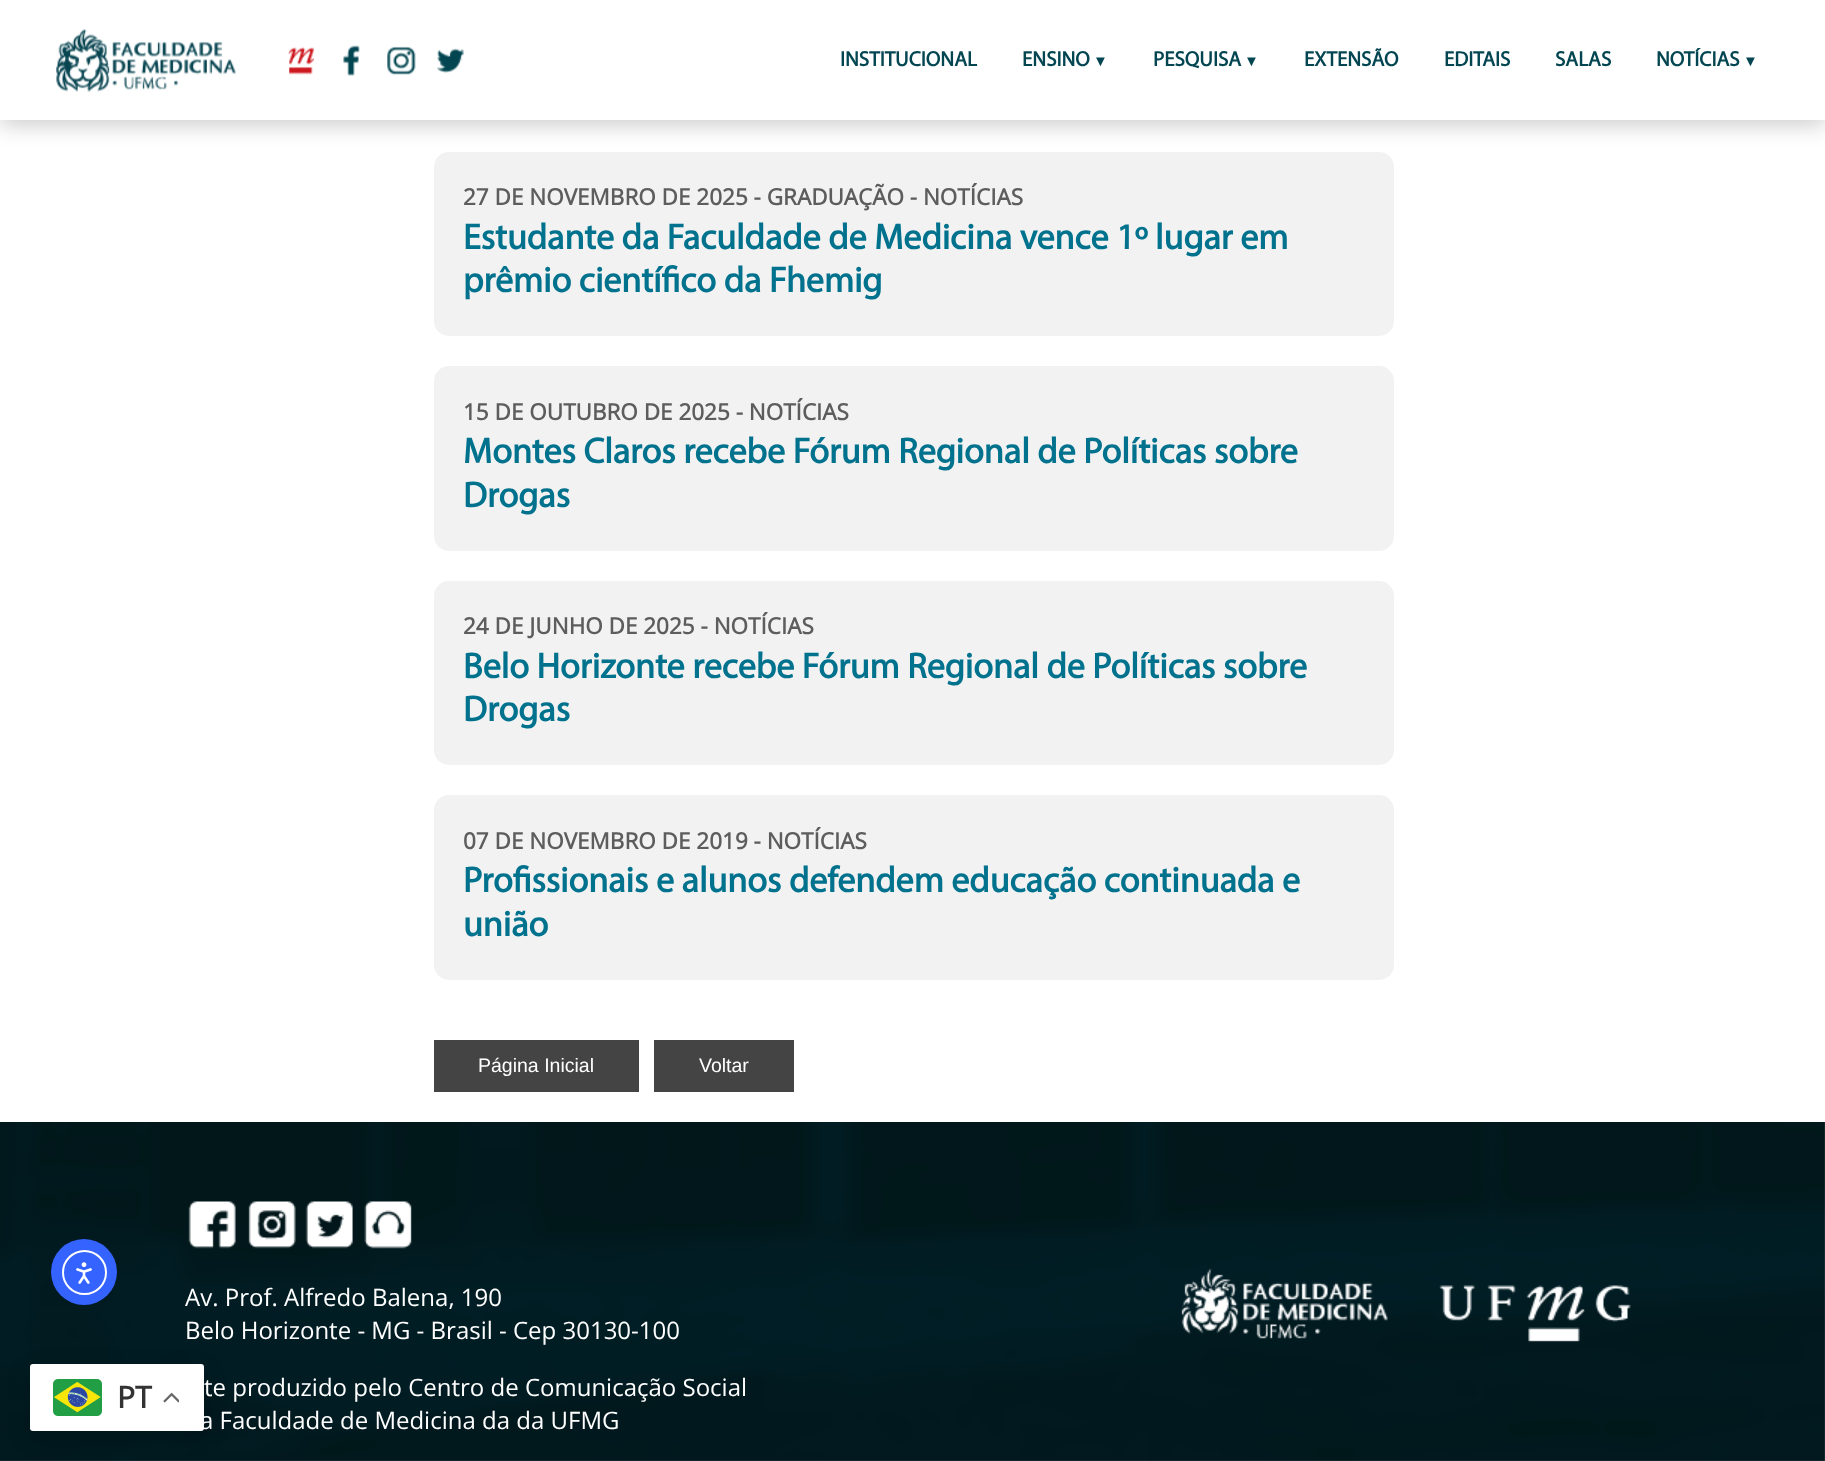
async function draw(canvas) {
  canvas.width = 1825
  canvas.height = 1461
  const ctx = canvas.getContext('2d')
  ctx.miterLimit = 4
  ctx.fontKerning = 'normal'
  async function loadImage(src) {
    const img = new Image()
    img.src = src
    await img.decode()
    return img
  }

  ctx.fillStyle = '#fff'
  ctx.fillRect(0, 0, 1825, 1461)
  ctx.fillStyle = '#f2f2f2'
  ctx.beginPath()
  ctx.roundRect(434, 152, 960, 184, 15)
  ctx.fill()
  ctx.fillStyle = '#00000033'
  ctx.filter = 'blur(11px)'
  ctx.beginPath()
  ctx.rect(0, 5, 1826, 120)
  ctx.fill()
  ctx.filter = 'none'
  ctx.fillStyle = '#fff'
  ctx.fillRect(0, 0, 1825, 120)
  ctx.drawImage(await loadImage('image0.png'), 56, 29, 180, 63)
  ctx.drawImage(await loadImage('image1.png'), 288, 47, 26, 28)
  ctx.drawImage(await loadImage('image2.png'), 343, 45, 17, 31)
  ctx.drawImage(await loadImage('image3.png'), 387, 46, 29, 29)
  ctx.drawImage(await loadImage('image4.png'), 437, 48, 28, 25)
  ctx.font = 'bold 21px Myriad'
  ctx.fillStyle = '#034651'
  ctx.fillText('INSTITUCIONAL', 840, 66)
  ctx.fillText('ENSINO', 1022, 66)
  ctx.font = 'bold 15px Liberation Sans'
  ctx.fillText('▼', 1093, 66)
  ctx.font = 'bold 21px Myriad'
  ctx.fillText('PESQUISA', 1153, 66)
  ctx.font = 'bold 15px Liberation Sans'
  ctx.fillText('▼', 1244, 66)
  ctx.font = 'bold 21px Myriad'
  ctx.fillText('EXTENSÃO', 1304, 66)
  ctx.fillText('EDITAIS', 1444, 66)
  ctx.fillText('SALAS', 1555, 66)
  ctx.fillText('NOTÍCIAS', 1656, 66)
  ctx.font = 'bold 15px Liberation Sans'
  ctx.fillText('▼', 1743, 66)
  ctx.font = 'bold 22.5px Open Sans'
  ctx.fillStyle = '#5d5d5d'
  ctx.fillText('27 DE NOVEMBRO DE 2025 - GRADUAÇÃO - NOTÍCIAS', 463, 205)
  ctx.font = 'bold 36px Myriad'
  ctx.fillStyle = '#00728d'
  ctx.fillText('Estudante da Faculdade de Medicina vence 1º lugar em', 463, 249)
  ctx.fillText('prêmio científico da Fhemig', 463, 292)
  ctx.fillStyle = '#f2f2f2'
  ctx.beginPath()
  ctx.roundRect(434, 366, 960, 185, 15)
  ctx.fill()
  ctx.font = 'bold 22.5px Open Sans'
  ctx.fillStyle = '#5d5d5d'
  ctx.fillText('15 DE OUTUBRO DE 2025 - NOTÍCIAS', 463, 420)
  ctx.font = 'bold 36px Myriad'
  ctx.fillStyle = '#00728d'
  ctx.fillText('Montes Claros recebe Fórum Regional de Políticas sobre', 463, 463)
  ctx.fillText('Drogas', 463, 507)
  ctx.fillStyle = '#f2f2f2'
  ctx.beginPath()
  ctx.roundRect(434, 581, 960, 184, 15)
  ctx.fill()
  ctx.font = 'bold 22.5px Open Sans'
  ctx.fillStyle = '#5d5d5d'
  ctx.fillText('24 DE JUNHO DE 2025 - NOTÍCIAS', 463, 634)
  ctx.font = 'bold 36px Myriad'
  ctx.fillStyle = '#00728d'
  ctx.fillText('Belo Horizonte recebe Fórum Regional de Políticas sobre', 463, 678)
  ctx.fillText('Drogas', 463, 721)
  ctx.fillStyle = '#f2f2f2'
  ctx.beginPath()
  ctx.roundRect(434, 795, 960, 185, 15)
  ctx.fill()
  ctx.font = 'bold 22.5px Open Sans'
  ctx.fillStyle = '#5d5d5d'
  ctx.fillText('07 DE NOVEMBRO DE 2019 - NOTÍCIAS', 463, 849)
  ctx.font = 'bold 36px Myriad'
  ctx.fillStyle = '#00728d'
  ctx.fillText('Profissionais e alunos defendem educação continuada e', 463, 892)
  ctx.fillText('união', 463, 936)
  ctx.fillStyle = '#444'
  ctx.fillRect(434, 1040, 205, 52)
  ctx.font = '19.5px Liberation Sans'
  ctx.fillStyle = '#fff'
  ctx.fillText('Página Inicial', 478, 1072)
  ctx.fillStyle = '#444'
  ctx.fillRect(654, 1040, 140, 52)
  ctx.fillStyle = '#fff'
  ctx.fillText('Voltar', 699, 1072)
  ctx.drawImage(await loadImage('image8.png'), 0, 1122, 1825, 339)
  ctx.fillStyle = '#3463ff'
  ctx.beginPath()
  ctx.arc(84, 1272, 33, 0, 2 * Math.PI)
  ctx.fill()
  ctx.beginPath()
  ctx.arc(84.5, 1272.5, 21.5, 0, 2 * Math.PI)
  ctx.strokeStyle = '#fff'
  ctx.lineWidth = 2
  ctx.stroke()
  ctx.drawImage(await loadImage('image5.png'), 76, 1262, 16, 22)
  ctx.fillStyle = '#00000026'
  ctx.filter = 'blur(11px)'
  ctx.beginPath()
  ctx.roundRect(30, 1371, 174, 68, 3)
  ctx.fill()
  ctx.filter = 'none'
  ctx.fillStyle = '#fff'
  ctx.beginPath()
  ctx.roundRect(30, 1364, 174, 67, 3)
  ctx.fill()
  ctx.drawImage(await loadImage('image6.png'), 53, 1379, 49, 37)
  ctx.font = 'bold 30px Open Sans'
  ctx.fillStyle = '#333'
  ctx.fillText('PT', 117, 1408)
  ctx.drawImage(await loadImage('image7.png'), 163, 1392, 16, 11)
  ctx.drawImage(await loadImage('image9.png'), 188, 1201, 48, 48)
  ctx.drawImage(await loadImage('image10.png'), 248, 1201, 48, 48)
  ctx.drawImage(await loadImage('image11.png'), 305, 1201, 48, 48)
  ctx.drawImage(await loadImage('image12.png'), 364, 1201, 48, 48)
  ctx.font = '24px Open Sans'
  ctx.fillStyle = '#fff'
  ctx.fillText('Av. Prof. Alfredo Balena, 190', 185, 1306)
  ctx.fillText('Belo Horizonte - MG - Brasil - Cep 30130-100', 185, 1339)
  ctx.fillText('te produzido pelo Centro de Comunicação Social', 204, 1396)
  ctx.fillText('a Faculdade de Medicina da da UFMG', 200, 1429)
  ctx.drawImage(await loadImage('image13.png'), 1181, 1268, 207, 71)
  ctx.drawImage(await loadImage('image14.png'), 1439, 1285, 192, 57)
}

draw(document.querySelector('canvas'))
